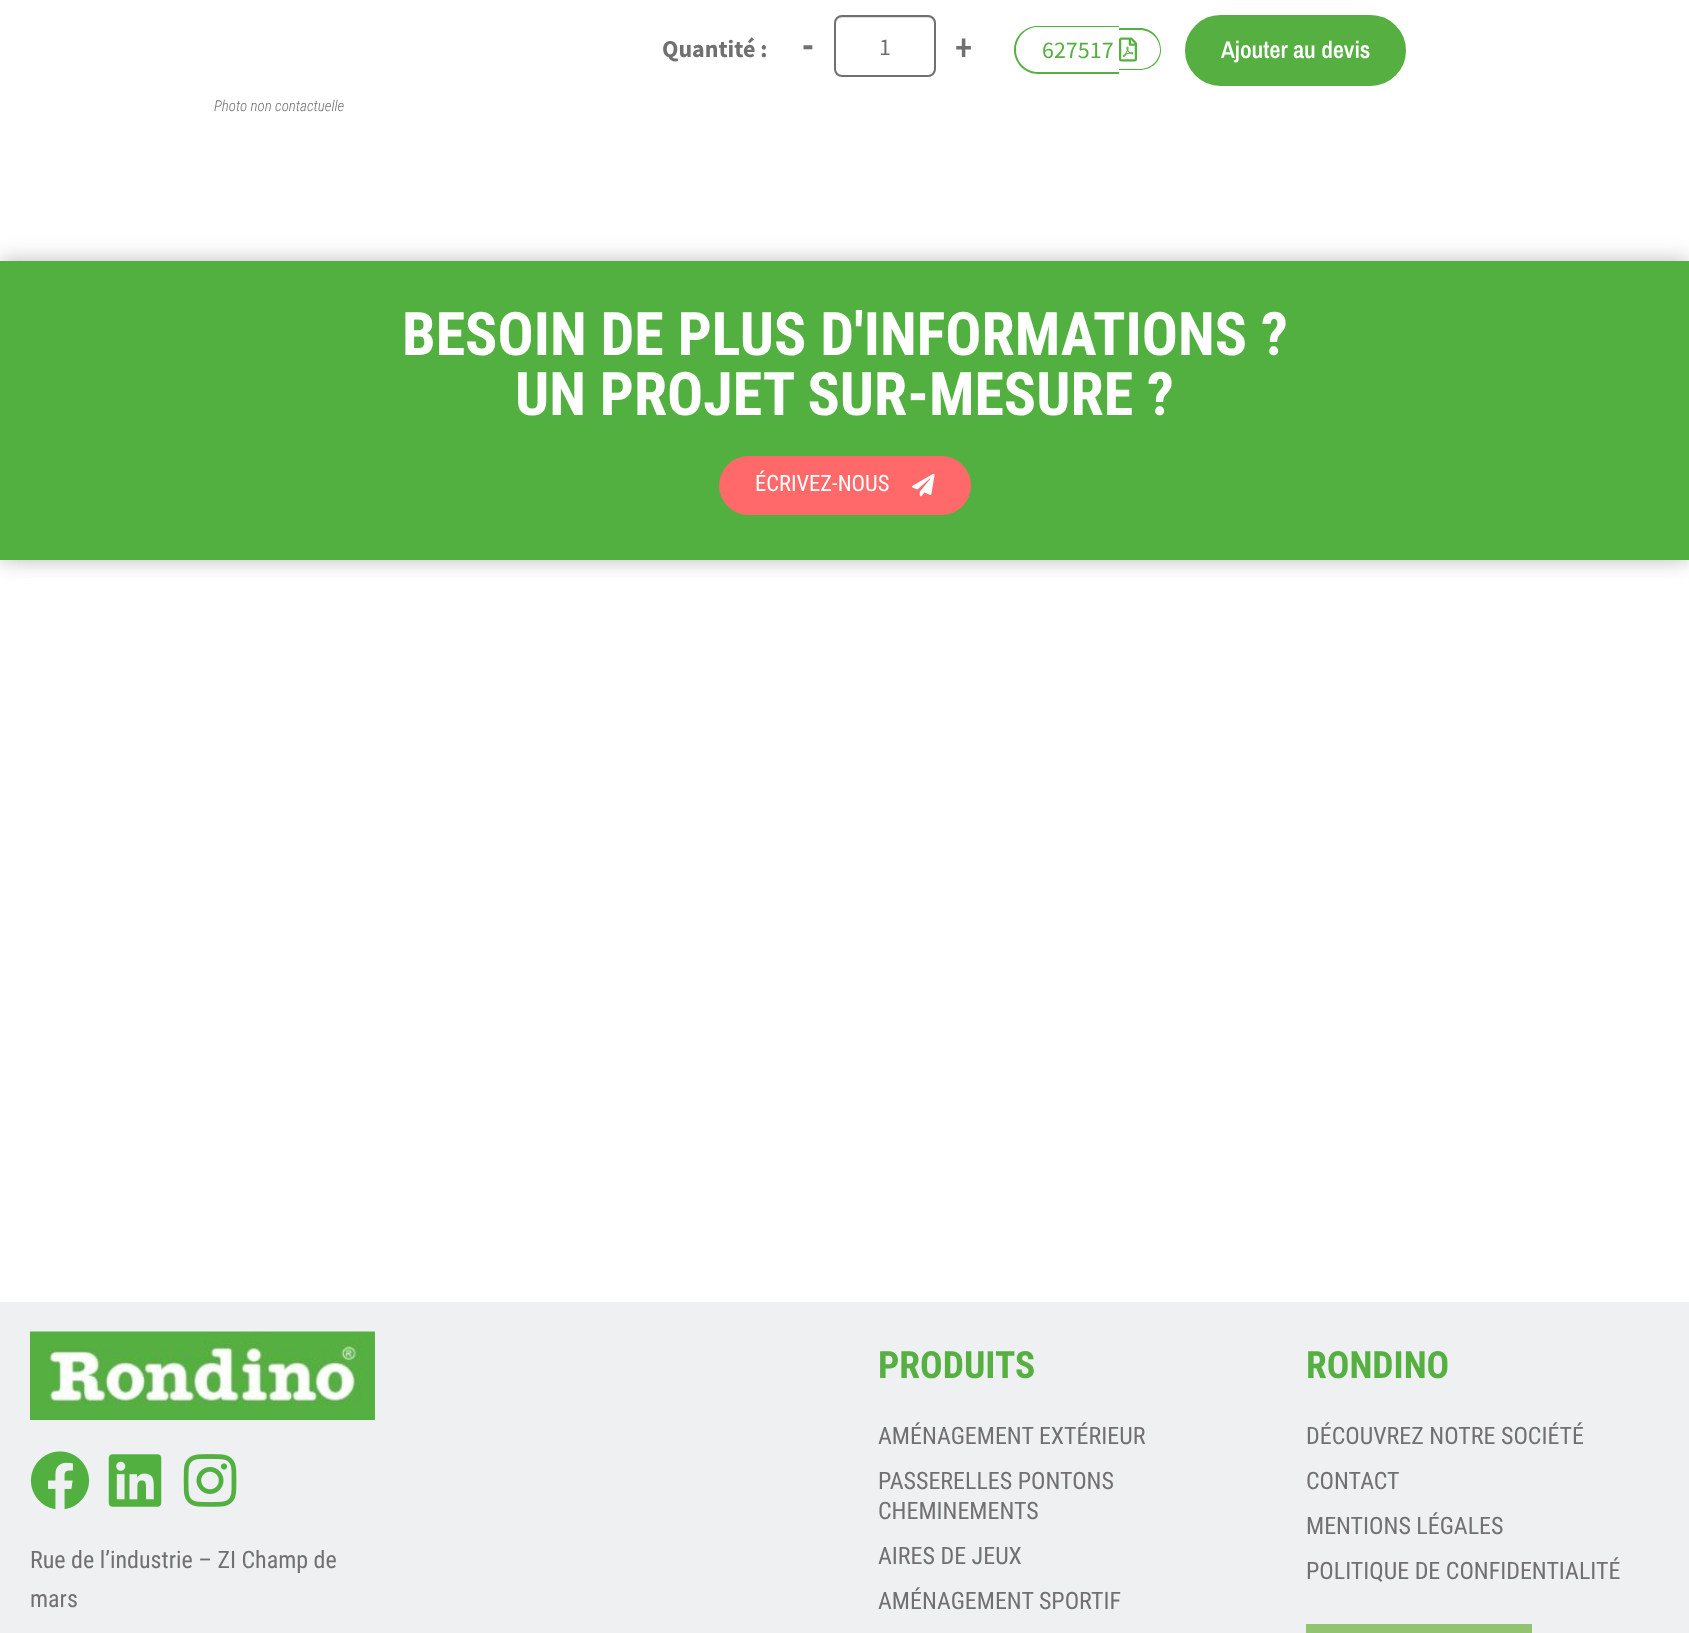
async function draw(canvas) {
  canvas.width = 1689
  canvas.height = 1633
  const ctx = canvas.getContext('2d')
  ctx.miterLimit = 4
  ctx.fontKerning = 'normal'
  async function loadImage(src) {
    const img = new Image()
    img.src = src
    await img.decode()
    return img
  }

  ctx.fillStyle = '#fff'
  ctx.fillRect(0, 0, 1689, 1633)
  ctx.font = 'bold 24px Source Sans Pro'
  ctx.fillStyle = '#707070'
  ctx.fillText('Quantité :', 662, 57)
  ctx.font = '600 36px Archivo Narrow'
  ctx.fillText('-', 803, 57)
  ctx.fillStyle = '#dfdfdf'
  ctx.beginPath()
  ctx.moveTo(842, 18)
  ctx.lineTo(928, 18)
  ctx.bezierCurveTo(932, 18, 934, 21, 934, 24)
  ctx.lineTo(934, 70)
  ctx.lineTo(933, 73)
  ctx.bezierCurveTo(934, 72, 935, 71, 935, 69)
  ctx.lineTo(935, 23)
  ctx.bezierCurveTo(935, 20, 932, 17, 929, 17)
  ctx.lineTo(842, 17)
  ctx.bezierCurveTo(839, 17, 836, 20, 836, 23)
  ctx.lineTo(836, 24)
  ctx.bezierCurveTo(836, 21, 838, 18, 842, 18)
  ctx.closePath()
  ctx.fill()
  ctx.beginPath()
  ctx.roundRect(835, 16, 100, 60, 7)
  ctx.strokeStyle = '#707070'
  ctx.lineWidth = 2
  ctx.stroke()
  ctx.font = '24px Source Sans Pro'
  ctx.fillStyle = '#707070'
  ctx.fillText('1', 879, 55)
  ctx.font = '600 36px Archivo Narrow'
  ctx.fillText('+', 955, 57)
  ctx.fillStyle = '#56af41'
  ctx.beginPath()
  ctx.moveTo(1038, 26)
  ctx.lineTo(1119, 26)
  ctx.lineTo(1119, 74)
  ctx.lineTo(1038, 74)
  ctx.bezierCurveTo(1025, 74, 1014, 63, 1014, 50)
  ctx.bezierCurveTo(1014, 36, 1025, 26, 1038, 26)
  ctx.closePath()
  ctx.moveTo(1038, 27)
  ctx.lineTo(1119, 27)
  ctx.lineTo(1119, 72)
  ctx.lineTo(1038, 72)
  ctx.bezierCurveTo(1026, 72, 1016, 62, 1016, 50)
  ctx.bezierCurveTo(1016, 37, 1026, 27, 1038, 27)
  ctx.closePath()
  ctx.fill('evenodd')
  ctx.beginPath()
  ctx.moveTo(1119, 28)
  ctx.lineTo(1140, 28)
  ctx.bezierCurveTo(1152, 28, 1161, 38, 1161, 50)
  ctx.bezierCurveTo(1161, 61, 1152, 70, 1140, 70)
  ctx.lineTo(1119, 70)
  ctx.closePath()
  ctx.moveTo(1119, 30)
  ctx.lineTo(1140, 30)
  ctx.bezierCurveTo(1151, 30, 1160, 39, 1160, 50)
  ctx.bezierCurveTo(1160, 60, 1151, 69, 1140, 69)
  ctx.lineTo(1119, 69)
  ctx.closePath()
  ctx.fill('evenodd')
  ctx.font = '24px Source Sans Pro'
  ctx.fillText('627517', 1042, 58)
  ctx.drawImage(await loadImage('image0.png'), 1119, 37, 18, 25)
  ctx.beginPath()
  ctx.roundRect(1186, 16, 219, 69, 34.5)
  ctx.fill()
  ctx.strokeStyle = '#56af41'
  ctx.stroke()
  ctx.font = '600 24px Archivo Narrow'
  ctx.fillStyle = '#fff'
  ctx.fillText('Ajouter au devis', 1221, 58)
  ctx.font = 'italic 300 15px Roboto Condensed'
  ctx.fillStyle = '#707070'
  ctx.fillText('Photo non contactuelle', 214, 111)
  ctx.fillStyle = '#52b041'
  ctx.fillRect(0, 261, 1689, 299)
  ctx.save()
  ctx.beginPath()
  ctx.moveTo(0, 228)
  ctx.lineTo(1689, 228)
  ctx.lineTo(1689, 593)
  ctx.lineTo(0, 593)
  ctx.closePath()
  ctx.moveTo(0, 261)
  ctx.lineTo(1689, 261)
  ctx.lineTo(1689, 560)
  ctx.lineTo(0, 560)
  ctx.closePath()
  ctx.clip('evenodd')
  ctx.fillStyle = '#79767680'
  ctx.filter = 'blur(10.5px)'
  ctx.beginPath()
  ctx.rect(0, 261, 1689, 299)
  ctx.fill()
  ctx.filter = 'none'
  ctx.restore()
  ctx.font = 'bold 60px Roboto Condensed'
  ctx.fillStyle = '#fff'
  ctx.fillText('BESOIN DE PLUS D\'INFORMATIONS ?', 402, 355)
  ctx.fillText('UN PROJET SUR-MESURE ?', 515, 415)
  ctx.fillStyle = '#ff6969'
  ctx.beginPath()
  ctx.roundRect(719, 456, 252, 59, 29.5)
  ctx.fill()
  ctx.font = '22.5px Roboto Condensed'
  ctx.fillStyle = '#fff'
  ctx.fillText('ÉCRIVEZ-NOUS', 755, 491)
  ctx.drawImage(await loadImage('image1.png'), 912, 473, 23, 24)
  ctx.fillStyle = '#eff0f2'
  ctx.fillRect(0, 1302, 1689, 331)
  ctx.drawImage(await loadImage('image2.png'), 30, 1331, 345, 89)
  ctx.drawImage(await loadImage('image3.png'), 30, 1451, 60, 59)
  ctx.drawImage(await loadImage('image4.png'), 108, 1454, 54, 53)
  ctx.drawImage(await loadImage('image5.png'), 183, 1454, 54, 53)
  ctx.font = '24px Roboto Condensed'
  ctx.fillStyle = '#707070'
  ctx.fillText('Rue de l’industrie – ZI Champ de', 30, 1568)
  ctx.fillText('mars', 30, 1607)
  ctx.font = 'bold 37.5px Roboto Condensed'
  ctx.fillStyle = '#56af41'
  ctx.fillText('PRODUITS', 878, 1378)
  ctx.font = '24px Roboto Condensed'
  ctx.fillStyle = '#707070'
  ctx.fillText('AMÉNAGEMENT EXTÉRIEUR', 878, 1444)
  ctx.fillText('PASSERELLES PONTONS', 878, 1489)
  ctx.fillText('CHEMINEMENTS', 878, 1519)
  ctx.fillText('AIRES DE JEUX', 878, 1564)
  ctx.fillText('AMÉNAGEMENT SPORTIF', 878, 1609)
  ctx.font = 'bold 37.5px Roboto Condensed'
  ctx.fillStyle = '#56af41'
  ctx.fillText('RONDINO', 1306, 1378)
  ctx.font = '24px Roboto Condensed'
  ctx.fillStyle = '#707070'
  ctx.fillText('DÉCOUVREZ NOTRE SOCIÉTÉ', 1306, 1444)
  ctx.fillText('CONTACT', 1306, 1489)
  ctx.fillText('MENTIONS LÉGALES', 1306, 1534)
  ctx.fillText('POLITIQUE DE CONFIDENTIALITÉ', 1306, 1579)
  ctx.fillStyle = '#92c46f'
  ctx.fillRect(1306, 1624, 226, 9)
}

draw(document.querySelector('canvas'))
